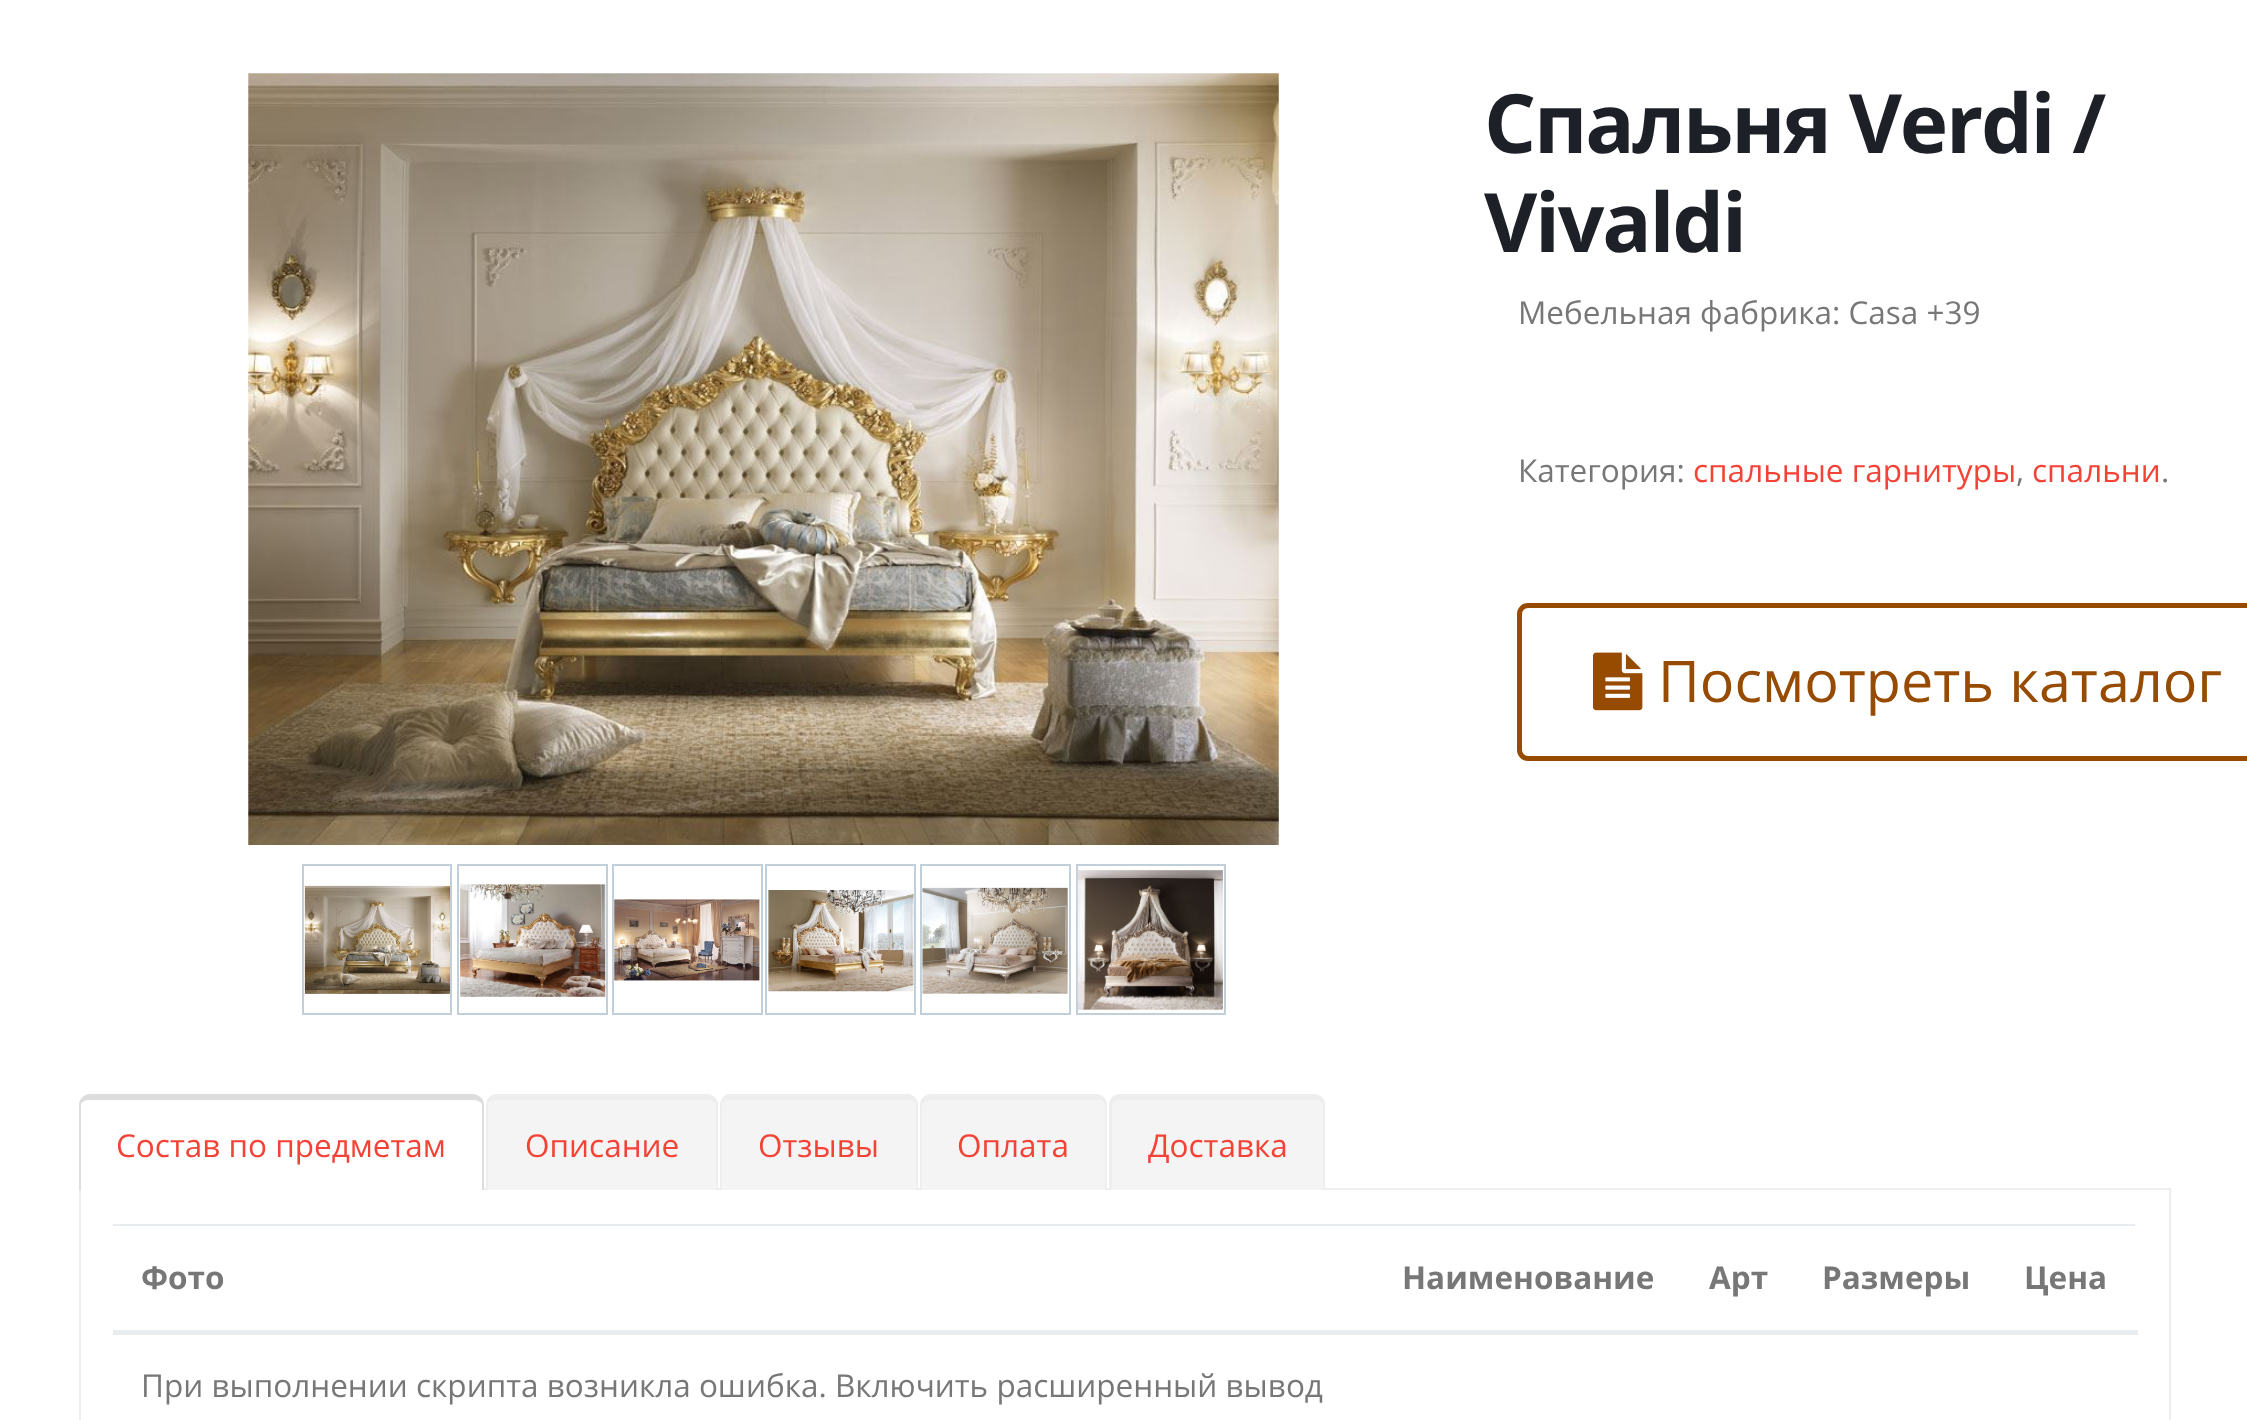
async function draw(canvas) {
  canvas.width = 2247
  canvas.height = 1420
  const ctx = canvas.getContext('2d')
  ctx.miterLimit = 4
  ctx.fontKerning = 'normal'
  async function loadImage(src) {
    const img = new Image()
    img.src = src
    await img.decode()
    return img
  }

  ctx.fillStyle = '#fff'
  ctx.fillRect(0, 0, 2247, 1420)
  ctx.drawImage(await loadImage('image0.png'), 248, 73, 1031, 772)
  ctx.strokeStyle = '#c0cfda'
  ctx.lineWidth = 2
  ctx.strokeRect(303, 865, 148, 149)
  ctx.drawImage(await loadImage('image1.png'), 304, 885, 146, 109)
  ctx.strokeRect(458, 865, 149, 149)
  ctx.drawImage(await loadImage('image2.png'), 460, 884, 146, 113)
  ctx.strokeRect(613, 865, 149, 149)
  ctx.drawImage(await loadImage('image3.png'), 614, 899, 146, 82)
  ctx.strokeRect(766, 865, 149, 149)
  ctx.drawImage(await loadImage('image4.png'), 768, 890, 146, 102)
  ctx.strokeRect(921, 865, 149, 149)
  ctx.drawImage(await loadImage('image5.png'), 922, 887, 146, 107)
  ctx.strokeRect(1077, 865, 148, 149)
  ctx.drawImage(await loadImage('image6.png'), 1077, 870, 146, 140)
  ctx.letterSpacing = '-2.25px'
  ctx.font = 'bold 82px Open Sans'
  ctx.fillStyle = '#1d2127'
  ctx.fillText('Спальня Verdi /', 1484, 153)
  ctx.fillText('Vivaldi', 1484, 252)
  ctx.letterSpacing = '0px'
  ctx.font = '31.5px Open Sans'
  ctx.fillStyle = '#777'
  ctx.fillText('Мебельная фабрика: Casa +39', 1518, 324)
  ctx.fillText('Категория:', 1518, 482)
  ctx.fillStyle = '#f44336'
  ctx.fillText('спальные гарнитуры', 1693, 482)
  ctx.fillStyle = '#777'
  ctx.fillText(',', 2016, 482)
  ctx.fillStyle = '#f44336'
  ctx.fillText('спальни', 2032, 482)
  ctx.fillStyle = '#777'
  ctx.fillText('.', 2161, 482)
  ctx.beginPath()
  ctx.roundRect(1519.5, 605.5, 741, 153, 8.5)
  ctx.strokeStyle = '#964b00'
  ctx.lineWidth = 5
  ctx.stroke()
  ctx.drawImage(await loadImage('image7.png'), 1593, 652, 50, 59)
  ctx.font = '57.5px Open Sans'
  ctx.fillStyle = '#964b00'
  ctx.fillText('Посмотреть каталог', 1658, 702)
  ctx.fillStyle = '#eee'
  ctx.fillRect(484, 1188, 1687, 2)
  ctx.fillStyle = '#ddd'
  ctx.beginPath()
  ctx.moveTo(90, 1094)
  ctx.lineTo(472, 1094)
  ctx.bezierCurveTo(479, 1094, 484, 1099, 484, 1105)
  ctx.lineTo(484, 1190)
  ctx.lineTo(79, 1190)
  ctx.lineTo(79, 1105)
  ctx.bezierCurveTo(79, 1099, 84, 1094, 90, 1094)
  ctx.closePath()
  ctx.moveTo(90, 1100)
  ctx.lineTo(472, 1100)
  ctx.bezierCurveTo(477, 1100, 482, 1102, 482, 1105)
  ctx.lineTo(482, 1190)
  ctx.lineTo(81, 1190)
  ctx.lineTo(81, 1105)
  ctx.bezierCurveTo(81, 1102, 85, 1100, 90, 1100)
  ctx.closePath()
  ctx.fill('evenodd')
  ctx.font = '31.5px Open Sans'
  ctx.fillStyle = '#f44336'
  ctx.fillText('Состав по предметам', 116, 1157)
  ctx.fillStyle = '#f4f4f4'
  ctx.beginPath()
  ctx.roundRect(486, 1094, 232, 96, [11, 11, 0, 0])
  ctx.fill()
  ctx.fillStyle = '#eee'
  ctx.beginPath()
  ctx.moveTo(497, 1094)
  ctx.lineTo(706, 1094)
  ctx.bezierCurveTo(713, 1094, 718, 1099, 718, 1105)
  ctx.lineTo(718, 1190)
  ctx.lineTo(486, 1190)
  ctx.lineTo(486, 1105)
  ctx.bezierCurveTo(486, 1099, 491, 1094, 497, 1094)
  ctx.closePath()
  ctx.moveTo(497, 1100)
  ctx.lineTo(706, 1100)
  ctx.bezierCurveTo(711, 1100, 716, 1102, 716, 1105)
  ctx.lineTo(716, 1190)
  ctx.lineTo(488, 1190)
  ctx.lineTo(488, 1105)
  ctx.bezierCurveTo(488, 1102, 492, 1100, 497, 1100)
  ctx.closePath()
  ctx.fill('evenodd')
  ctx.fillStyle = '#f44336'
  ctx.fillText('Описание', 525, 1157)
  ctx.fillStyle = '#f4f4f4'
  ctx.beginPath()
  ctx.roundRect(720, 1094, 198, 96, [11, 11, 0, 0])
  ctx.fill()
  ctx.fillStyle = '#eee'
  ctx.beginPath()
  ctx.moveTo(731, 1094)
  ctx.lineTo(907, 1094)
  ctx.bezierCurveTo(913, 1094, 918, 1099, 918, 1105)
  ctx.lineTo(918, 1190)
  ctx.lineTo(720, 1190)
  ctx.lineTo(720, 1105)
  ctx.bezierCurveTo(720, 1099, 725, 1094, 731, 1094)
  ctx.closePath()
  ctx.moveTo(731, 1100)
  ctx.lineTo(907, 1100)
  ctx.bezierCurveTo(912, 1100, 916, 1102, 916, 1105)
  ctx.lineTo(916, 1190)
  ctx.lineTo(722, 1190)
  ctx.lineTo(722, 1105)
  ctx.bezierCurveTo(722, 1102, 726, 1100, 731, 1100)
  ctx.closePath()
  ctx.fill('evenodd')
  ctx.fillStyle = '#f44336'
  ctx.fillText('Отзывы', 758, 1157)
  ctx.fillStyle = '#f4f4f4'
  ctx.beginPath()
  ctx.roundRect(920, 1094, 187, 96, [11, 11, 0, 0])
  ctx.fill()
  ctx.fillStyle = '#eee'
  ctx.beginPath()
  ctx.moveTo(932, 1094)
  ctx.lineTo(1096, 1094)
  ctx.bezierCurveTo(1102, 1094, 1107, 1099, 1107, 1105)
  ctx.lineTo(1107, 1190)
  ctx.lineTo(920, 1190)
  ctx.lineTo(920, 1105)
  ctx.bezierCurveTo(920, 1099, 925, 1094, 932, 1094)
  ctx.closePath()
  ctx.moveTo(932, 1100)
  ctx.lineTo(1096, 1100)
  ctx.bezierCurveTo(1101, 1100, 1105, 1102, 1105, 1105)
  ctx.lineTo(1105, 1190)
  ctx.lineTo(922, 1190)
  ctx.lineTo(922, 1105)
  ctx.bezierCurveTo(922, 1102, 927, 1100, 932, 1100)
  ctx.closePath()
  ctx.fill('evenodd')
  ctx.fillStyle = '#f44336'
  ctx.fillText('Оплата', 957, 1157)
  ctx.fillStyle = '#f4f4f4'
  ctx.beginPath()
  ctx.roundRect(1109, 1094, 216, 96, [11, 11, 0, 0])
  ctx.fill()
  ctx.fillStyle = '#eee'
  ctx.beginPath()
  ctx.moveTo(1120, 1094)
  ctx.lineTo(1314, 1094)
  ctx.bezierCurveTo(1320, 1094, 1325, 1099, 1325, 1105)
  ctx.lineTo(1325, 1190)
  ctx.lineTo(1109, 1190)
  ctx.lineTo(1109, 1105)
  ctx.bezierCurveTo(1109, 1099, 1114, 1094, 1120, 1094)
  ctx.closePath()
  ctx.moveTo(1120, 1100)
  ctx.lineTo(1314, 1100)
  ctx.bezierCurveTo(1319, 1100, 1323, 1102, 1323, 1105)
  ctx.lineTo(1323, 1190)
  ctx.lineTo(1112, 1190)
  ctx.lineTo(1112, 1105)
  ctx.bezierCurveTo(1112, 1102, 1116, 1100, 1120, 1100)
  ctx.closePath()
  ctx.fill('evenodd')
  ctx.fillStyle = '#f44336'
  ctx.fillText('Доставка', 1148, 1157)
  ctx.fillStyle = '#eee'
  ctx.beginPath()
  ctx.moveTo(79, 1190)
  ctx.lineTo(2171, 1190)
  ctx.lineTo(2171, 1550)
  ctx.bezierCurveTo(2171, 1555, 2167, 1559, 2162, 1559)
  ctx.lineTo(88, 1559)
  ctx.bezierCurveTo(83, 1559, 79, 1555, 79, 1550)
  ctx.closePath()
  ctx.moveTo(81, 1190)
  ctx.lineTo(2169, 1190)
  ctx.lineTo(2169, 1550)
  ctx.bezierCurveTo(2169, 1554, 2166, 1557, 2162, 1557)
  ctx.lineTo(88, 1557)
  ctx.bezierCurveTo(84, 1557, 81, 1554, 81, 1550)
  ctx.closePath()
  ctx.fill('evenodd')
  ctx.font = 'bold 31.5px Open Sans'
  ctx.fillStyle = '#777'
  ctx.fillText('Фото', 141, 1289)
  ctx.fillText('Наименование', 1402, 1289)
  ctx.fillText('Арт', 1709, 1289)
  ctx.fillText('Размеры', 1822, 1289)
  ctx.fillStyle = '#e9ecef'
  ctx.fillRect(113, 1224, 2022, 2)
  ctx.fillRect(113, 1330, 2025, 5)
  ctx.fillStyle = '#777'
  ctx.fillText('Цена', 2024, 1289)
  ctx.font = '31.5px Open Sans'
  ctx.fillText('При выполнении скрипта возникла ошибка. Включить расширенный вывод', 141, 1397)
}

draw(document.querySelector('canvas'))
